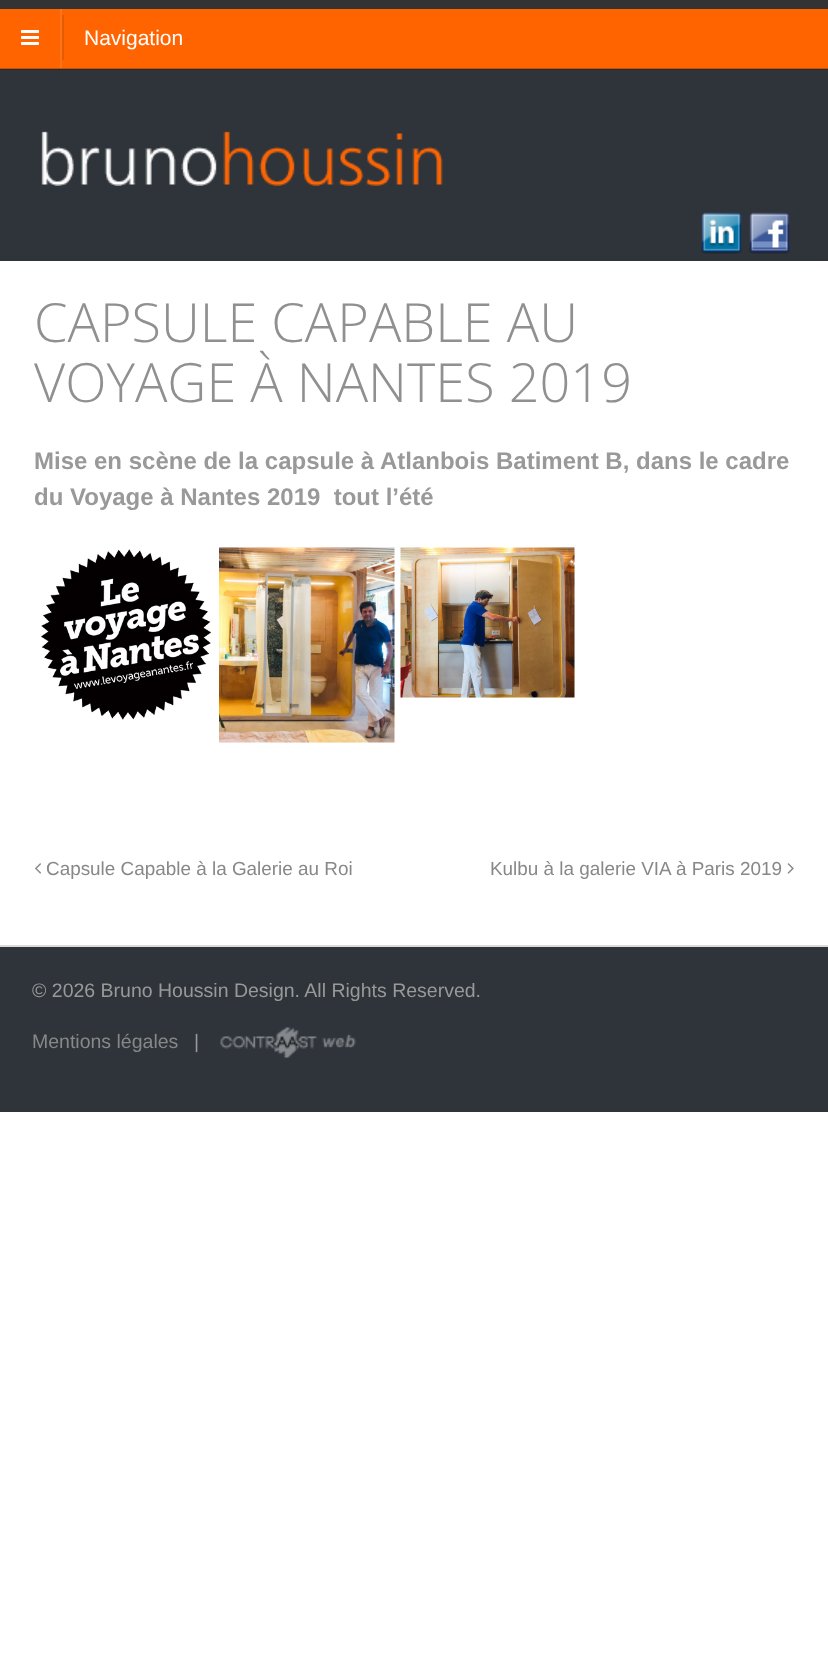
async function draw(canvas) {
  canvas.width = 828
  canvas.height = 1657
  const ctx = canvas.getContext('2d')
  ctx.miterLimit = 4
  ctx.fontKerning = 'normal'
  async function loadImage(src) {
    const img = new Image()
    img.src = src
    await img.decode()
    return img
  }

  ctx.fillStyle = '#fff'
  ctx.fillRect(0, 0, 828, 1657)
  ctx.fillStyle = '#333'
  ctx.fillRect(0, 0, 828, 9)
  ctx.fillStyle = '#2f343b'
  ctx.fillRect(0, 70, 828, 191)
  ctx.fillStyle = '#262a2f'
  ctx.fillRect(0, 69, 828, 1)
  ctx.fillStyle = '#ff6400'
  ctx.fillRect(0, 9, 828, 59)
  ctx.fillStyle = '#cc5000'
  ctx.fillRect(0, 68, 828, 1)
  ctx.fillStyle = '#ff741a'
  ctx.fillRect(60, 9, 2, 59)
  ctx.drawImage(await loadImage('image0.png'), 21, 30, 18, 15)
  ctx.font = '21px Liberation Sans'
  ctx.fillStyle = '#fff'
  ctx.fillText('Navigation', 84, 45)
  ctx.fillStyle = '#e65a00'
  ctx.fillRect(62, 15, 2, 45)
  ctx.drawImage(await loadImage('image1.png'), 41, 131, 402, 55)
  ctx.drawImage(await loadImage('image2.png'), 701, 212, 41, 42)
  ctx.drawImage(await loadImage('image3.png'), 749, 212, 41, 42)
  ctx.font = '300 54px Open Sans'
  ctx.fillStyle = '#909090'
  ctx.fillText('CAPSULE CAPABLE AU', 34, 342)
  ctx.fillText('VOYAGE À NANTES 2019', 34, 402)
  ctx.font = 'bold 24px Liberation Sans'
  ctx.fillStyle = '#999'
  ctx.fillText('Mise en scène de la capsule à Atlanbois Batiment B, dans le cadre', 34, 469)
  ctx.fillText('du Voyage à Nantes 2019  tout l’été', 34, 505)
  ctx.drawImage(await loadImage('image4.png'), 41, 549, 170, 171)
  ctx.drawImage(await loadImage('image5.png'), 219, 547, 176, 196)
  ctx.drawImage(await loadImage('image6.png'), 400, 547, 175, 151)
  ctx.drawImage(await loadImage('image7.png'), 35, 863, 6, 11)
  ctx.font = '18.9px Liberation Sans'
  ctx.fillStyle = '#888'
  ctx.fillText('Capsule Capable à la Galerie au Roi', 46, 875)
  ctx.fillText('Kulbu à la galerie VIA à Paris 2019', 490, 875)
  ctx.drawImage(await loadImage('image8.png'), 787, 863, 7, 11)
  ctx.fillStyle = '#2f343b'
  ctx.fillRect(0, 947, 828, 165)
  ctx.fillStyle = '#dbdbdb'
  ctx.fillRect(0, 945, 828, 2)
  ctx.font = '19.5px Liberation Sans'
  ctx.fillStyle = '#999'
  ctx.fillText('© 2026 Bruno Houssin Design. All Rights Reserved.', 32, 997)
  ctx.fillStyle = '#888'
  ctx.fillText('Mentions légales', 32, 1048)
  ctx.fillStyle = '#999'
  ctx.fillText('|', 194, 1048)
  ctx.drawImage(await loadImage('image9.png'), 220, 1027, 136, 31)
}

draw(document.querySelector('canvas'))
